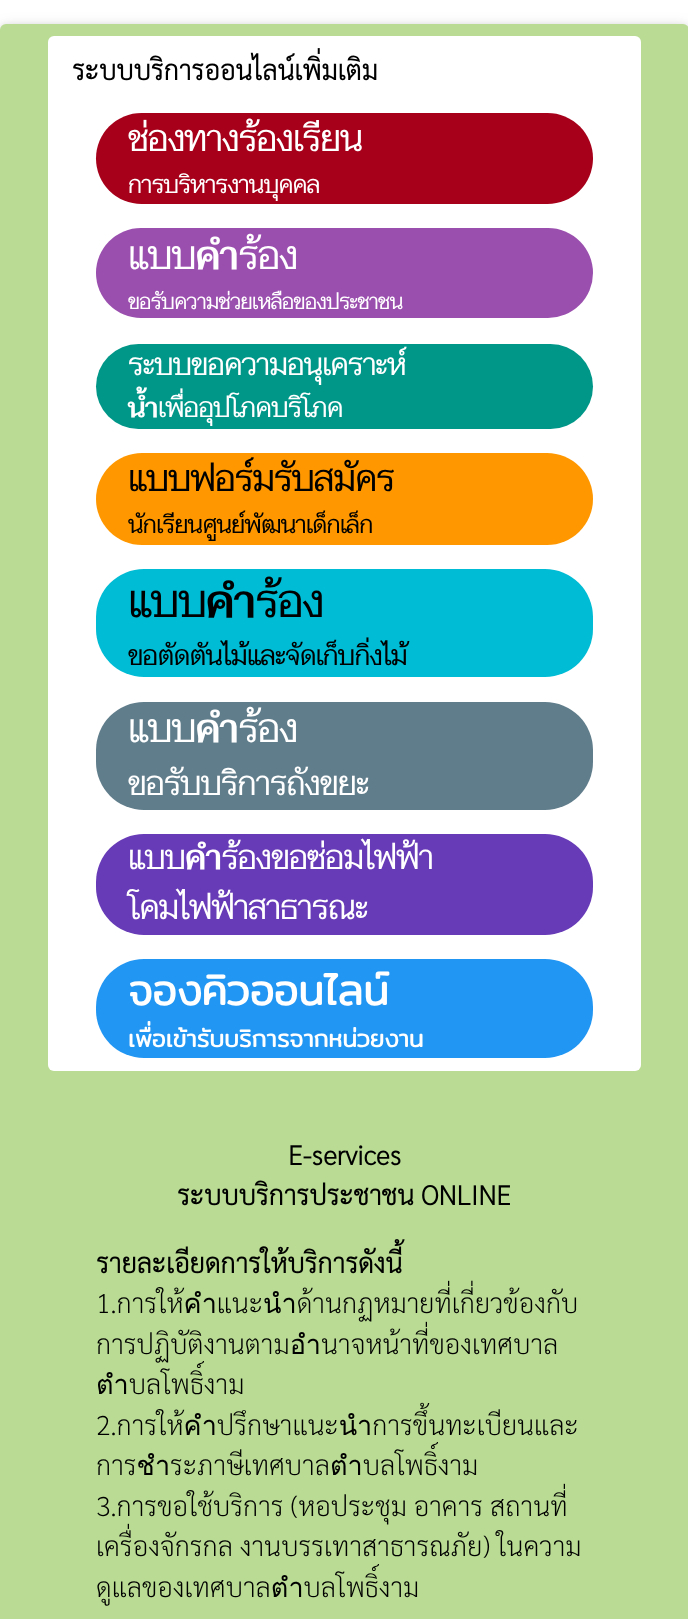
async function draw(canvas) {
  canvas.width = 688
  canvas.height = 1619
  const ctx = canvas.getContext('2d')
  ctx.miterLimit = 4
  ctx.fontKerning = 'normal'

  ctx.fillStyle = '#fff'
  ctx.fillRect(0, 0, 688, 1619)
  ctx.fillStyle = '#0000001f'
  ctx.filter = 'blur(7.5px)'
  ctx.beginPath()
  ctx.roundRect(0, 27, 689, 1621, 6)
  ctx.fill()
  ctx.filter = 'none'
  ctx.fillStyle = '#00000029'
  ctx.filter = 'blur(4px)'
  ctx.beginPath()
  ctx.roundRect(0, 27, 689, 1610, 6)
  ctx.fill()
  ctx.filter = 'none'
  ctx.fillStyle = '#b9db93'
  ctx.beginPath()
  ctx.roundRect(0, 24, 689, 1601, 6)
  ctx.fill()
  ctx.fillStyle = '#fff'
  ctx.beginPath()
  ctx.roundRect(48, 36, 593, 1035, 6)
  ctx.fill()
  ctx.font = 'bold 27px Sarabun'
  ctx.fillStyle = '#000'
  ctx.fillText('ระบบบริการออนไลน์เพิ่มเติม', 72, 80)
  ctx.fillStyle = '#a6001a'
  ctx.beginPath()
  ctx.roundRect(96, 113, 497, 91, 45.5)
  ctx.fill()
  ctx.font = 'bold 36px Taviraj'
  ctx.fillStyle = '#fff'
  ctx.fillText('ช่องทางร้องเรียน', 128, 151)
  ctx.font = 'bold 24px Taviraj'
  ctx.fillText('การบริหารงานบุคคล', 128, 193)
  ctx.fillStyle = '#9a4eae'
  ctx.beginPath()
  ctx.roundRect(96, 228, 497, 90, 45)
  ctx.fill()
  ctx.font = 'bold 39px Taviraj'
  ctx.fillStyle = '#fff'
  ctx.fillText('แบบคำร้อง', 128, 269)
  ctx.font = 'bold 21px Taviraj'
  ctx.fillText('ขอรับความช่วยเหลือของประชาชน', 128, 309)
  ctx.fillStyle = '#009688'
  ctx.beginPath()
  ctx.roundRect(96, 344, 497, 85, 42.5)
  ctx.fill()
  ctx.font = 'bold 30px Taviraj'
  ctx.fillStyle = '#fff'
  ctx.fillText('ระบบขอความอนุเคราะห์', 128, 375)
  ctx.font = 'bold 27px Taviraj'
  ctx.fillText('น้ำเพื่ออุปโภคบริโภค', 128, 417)
  ctx.fillStyle = '#ff9800'
  ctx.beginPath()
  ctx.roundRect(96, 453, 497, 92, 46)
  ctx.fill()
  ctx.font = 'bold 36px Taviraj'
  ctx.fillStyle = '#000'
  ctx.fillText('แบบฟอร์มรับสมัคร', 128, 491)
  ctx.font = 'bold 24px Taviraj'
  ctx.fillText('นักเรียนศูนย์พัฒนาเด็กเล็ก', 128, 533)
  ctx.fillStyle = '#00bcd4'
  ctx.beginPath()
  ctx.roundRect(96, 569, 497, 108, 48)
  ctx.fill()
  ctx.font = 'bold 45px Taviraj'
  ctx.fillStyle = '#000'
  ctx.fillText('แบบคำร้อง', 128, 617)
  ctx.font = 'bold 27px Taviraj'
  ctx.fillText('ขอตัดตันไม้และจัดเก็บกิ่งไม้', 128, 665)
  ctx.fillStyle = '#607d8b'
  ctx.beginPath()
  ctx.roundRect(96, 702, 497, 108, 48)
  ctx.fill()
  ctx.font = 'bold 39px Taviraj'
  ctx.fillStyle = '#fff'
  ctx.fillText('แบบคำร้อง', 128, 742)
  ctx.font = 'bold 33px Taviraj'
  ctx.fillText('ขอรับบริการถังขยะ', 128, 795)
  ctx.fillStyle = '#673ab7'
  ctx.beginPath()
  ctx.roundRect(96, 834, 497, 101, 48)
  ctx.fill()
  ctx.fillStyle = '#fff'
  ctx.fillText('แบบคำร้องขอซ่อมไฟฟ้า', 128, 869)
  ctx.fillText('โคมไฟฟ้าสาธารณะ', 128, 919)
  ctx.fillStyle = '#2196f3'
  ctx.beginPath()
  ctx.roundRect(96, 959, 497, 99, 48)
  ctx.fill()
  ctx.font = 'bold 42px Mitr'
  ctx.fillStyle = '#fff'
  ctx.fillText('จองคิวออนไลน์', 128, 1005)
  ctx.font = 'bold 24px Mitr'
  ctx.fillText('เพื่อเข้ารับบริการจากหน่วยงาน', 128, 1047)
  ctx.font = 'bold 27px Sarabun'
  ctx.fillStyle = '#000'
  ctx.fillText('E-services', 288, 1165)
  ctx.fillText('ระบบบริการประชาชน ONLINE', 177, 1205)
  ctx.fillText('รายละเอียดการให้บริการดังนี้', 96, 1273)
  ctx.font = '200 27px Sarabun'
  ctx.fillText('1.การให้คำแนะนำด้านกฏหมายที่เกี่ยวข้องกับ', 96, 1313)
  ctx.fillText('การปฏิบัติงานตามอำนาจหน้าที่ของเทศบาล', 96, 1354)
  ctx.fillText('ตำบลโพธิ์งาม', 96, 1394)
  ctx.fillText('2.การให้คำปรึกษาแนะนำการขึ้นทะเบียนและ', 96, 1435)
  ctx.fillText('การชำระภาษีเทศบาลตำบลโพธิ์งาม', 96, 1475)
  ctx.fillText('3.การขอใช้บริการ (หอประชุม อาคาร สถานที่', 96, 1516)
  ctx.fillText('เครื่องจักรกล งานบรรเทาสาธารณภัย) ในความ', 96, 1556)
  ctx.fillText('ดูแลของเทศบาลตำบลโพธิ์งาม', 96, 1597)
}

draw(document.querySelector('canvas'))
